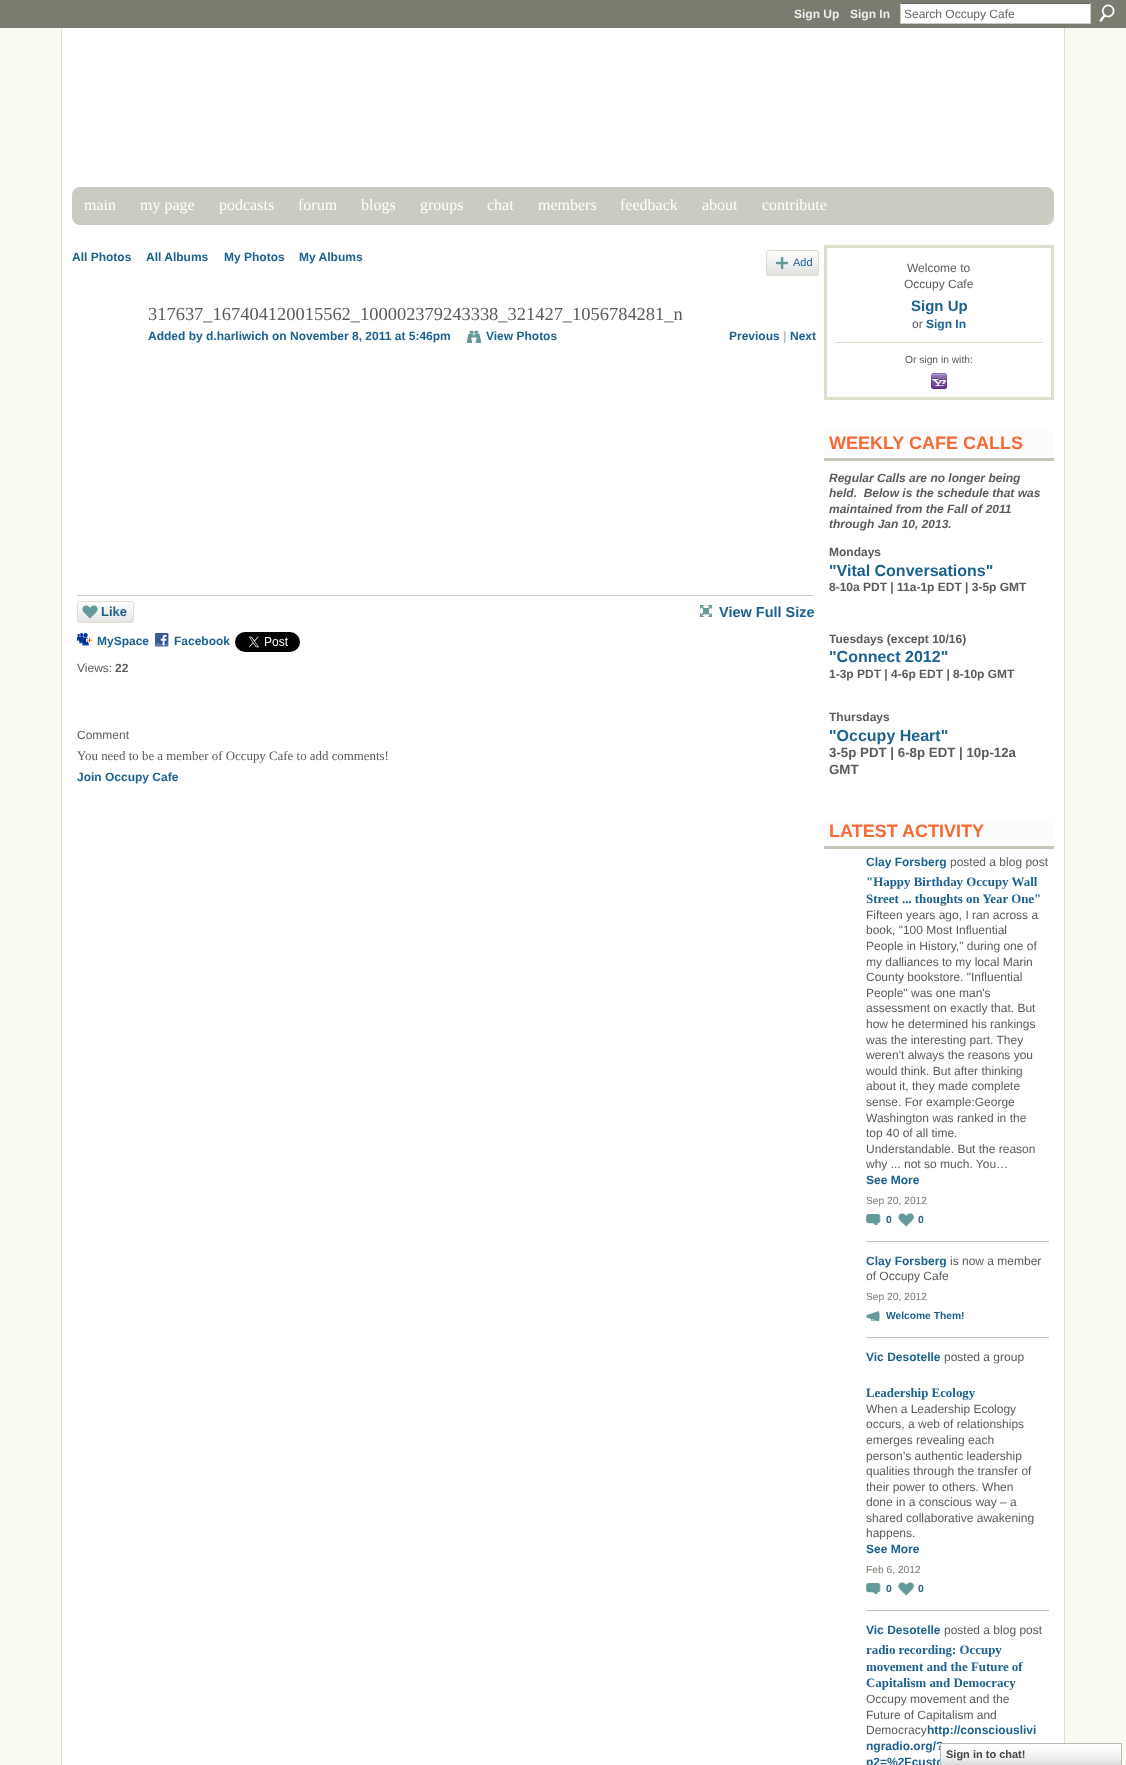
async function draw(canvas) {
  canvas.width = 1126
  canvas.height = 1765
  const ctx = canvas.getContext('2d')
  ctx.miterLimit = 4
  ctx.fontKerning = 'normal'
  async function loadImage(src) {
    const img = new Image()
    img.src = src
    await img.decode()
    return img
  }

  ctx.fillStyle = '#fafaf2'
  ctx.fillRect(0, 0, 1126, 1765)
  ctx.fillStyle = '#7b7b6f'
  ctx.fillRect(0, 0, 1126, 28)
  ctx.font = 'bold 12px Liberation Sans'
  ctx.fillStyle = '#eee'
  ctx.fillText('Sign Up', 794, 18)
  ctx.fillText('Sign In', 850, 18)
  ctx.fillStyle = '#fff'
  ctx.fillRect(901, 4, 189, 19)
  ctx.fillStyle = '#666'
  ctx.fillRect(900, 3, 191, 1)
  ctx.fillStyle = '#ccc'
  ctx.fillRect(1090, 3, 1, 21)
  ctx.fillRect(900, 23, 191, 1)
  ctx.fillRect(900, 3, 1, 21)
  ctx.font = '12px Liberation Sans'
  ctx.fillStyle = '#666'
  ctx.fillText('Search Occupy Cafe', 904, 18)
  ctx.drawImage(await loadImage('image0.png'), 1099, 4, 16, 18)
  ctx.fillStyle = '#fff'
  ctx.fillRect(62, 28, 1002, 1737)
  ctx.fillStyle = '#dfddcb'
  ctx.fillRect(1064, 28, 1, 207)
  ctx.fillRect(61, 28, 1, 207)
  ctx.fillStyle = '#cccbc2'
  ctx.beginPath()
  ctx.roundRect(72, 187, 982, 38, 8)
  ctx.fill()
  ctx.font = '16px Liberation Serif'
  ctx.fillStyle = '#fff'
  ctx.fillText('main', 84, 210)
  ctx.fillText('my page', 140, 210)
  ctx.fillText('podcasts', 219, 210)
  ctx.fillText('forum', 298, 210)
  ctx.fillText('blogs', 361, 210)
  ctx.fillText('groups', 420, 210)
  ctx.fillText('chat', 487, 210)
  ctx.fillText('members', 538, 210)
  ctx.fillText('feedback', 620, 210)
  ctx.fillText('about', 702, 210)
  ctx.fillText('contribute', 762, 210)
  ctx.fillStyle = '#dfddcb'
  ctx.beginPath()
  ctx.moveTo(61, 235)
  ctx.lineTo(1065, 235)
  ctx.lineTo(1065, 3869)
  ctx.bezierCurveTo(1065, 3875, 1061, 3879, 1055, 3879)
  ctx.lineTo(71, 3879)
  ctx.bezierCurveTo(65, 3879, 61, 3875, 61, 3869)
  ctx.closePath()
  ctx.moveTo(62, 235)
  ctx.lineTo(1064, 235)
  ctx.lineTo(1064, 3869)
  ctx.bezierCurveTo(1064, 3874, 1060, 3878, 1055, 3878)
  ctx.lineTo(71, 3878)
  ctx.bezierCurveTo(66, 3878, 62, 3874, 62, 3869)
  ctx.closePath()
  ctx.fill('evenodd')
  ctx.font = 'bold 12px Liberation Sans'
  ctx.fillStyle = '#1d618f'
  ctx.fillText('All Photos', 72, 261)
  ctx.fillText('All Albums', 146, 261)
  ctx.fillText('My Photos', 224, 261)
  ctx.fillText('My Albums', 299, 261)
  ctx.drawImage(await loadImage('image1.png'), 766, 253, 53, 23)
  ctx.beginPath()
  ctx.roundRect(766.5, 250.5, 52, 25, 2.5)
  ctx.strokeStyle = '#dfddcb'
  ctx.stroke()
  ctx.drawImage(await loadImage('image2.png'), 776, 257, 12, 12)
  ctx.font = '11px Liberation Sans'
  ctx.fillText('Add', 793, 266)
  ctx.font = '18.45px Liberation Serif'
  ctx.fillStyle = '#5b5b58'
  ctx.fillText('317637_167404120015562_100002379243338_321427_1056784281_n', 148, 320)
  ctx.font = 'bold 12px Liberation Sans'
  ctx.fillStyle = '#1d618f'
  ctx.fillText('Added by d.harliwich on November 8, 2011 at 5:46pm', 148, 340)
  ctx.drawImage(await loadImage('image3.png'), 467, 330, 14, 13)
  ctx.fillText('View Photos', 486, 340)
  ctx.fillText('Previous', 729, 340)
  ctx.fillStyle = '#a5c0d2'
  ctx.fillText('|', 783, 340)
  ctx.fillStyle = '#1d618f'
  ctx.fillText('Next', 790, 340)
  ctx.fillStyle = '#ccc'
  ctx.fillRect(77, 595, 737, 1)
  ctx.drawImage(await loadImage('image4.png'), 77, 604, 57, 19)
  ctx.beginPath()
  ctx.roundRect(77.5, 601.5, 56, 21, 2.5)
  ctx.stroke()
  ctx.drawImage(await loadImage('image5.png'), 82, 605, 16, 14)
  ctx.font = 'bold 13px Liberation Sans'
  ctx.fillStyle = '#1d618f'
  ctx.fillText('Like', 101, 616)
  ctx.drawImage(await loadImage('image6.png'), 77, 633, 15, 13)
  ctx.font = 'bold 12px Liberation Sans'
  ctx.fillText('MySpace', 97, 645)
  ctx.drawImage(await loadImage('image7.png'), 155, 633, 14, 14)
  ctx.fillText('Facebook', 174, 645)
  ctx.drawImage(await loadImage('image8.png'), 235, 632, 65, 20)
  ctx.font = '12px Liberation Sans'
  ctx.fillStyle = '#5b5b58'
  ctx.fillText('Views:', 77, 672)
  ctx.font = 'bold 12px Liberation Sans'
  ctx.fillText('22', 115, 672)
  ctx.drawImage(await loadImage('image9.png'), 700, 605, 12, 12)
  ctx.font = 'bold 14.5px Liberation Sans'
  ctx.fillStyle = '#1d618f'
  ctx.fillText('View Full Size', 719, 617)
  ctx.font = '12px Liberation Sans'
  ctx.fillStyle = '#5b5b58'
  ctx.fillText('Comment', 77, 739)
  ctx.font = '12.9px Liberation Serif'
  ctx.fillText('You need to be a member of Occupy Cafe to add comments!', 77, 760)
  ctx.font = 'bold 12px Liberation Sans'
  ctx.fillStyle = '#1d618f'
  ctx.fillText('Join Occupy Cafe', 77, 781)
  ctx.lineWidth = 3
  ctx.strokeRect(825.5, 246.5, 227, 152)
  ctx.font = '12px Liberation Sans'
  ctx.fillStyle = '#5b5b58'
  ctx.fillText('Welcome to', 907, 272)
  ctx.fillText('Occupy Cafe', 904, 288)
  ctx.font = 'bold 15px Liberation Sans'
  ctx.fillStyle = '#1d618f'
  ctx.fillText('Sign Up', 911, 311)
  ctx.font = '12px Liberation Sans'
  ctx.fillStyle = '#5b5b58'
  ctx.fillText('or', 912, 328)
  ctx.font = 'bold 12px Liberation Sans'
  ctx.fillStyle = '#1d618f'
  ctx.fillText('Sign In', 926, 328)
  ctx.fillStyle = '#dfddcb'
  ctx.fillRect(835, 342, 208, 1)
  ctx.font = '10.25px Liberation Sans'
  ctx.fillStyle = '#5b5b58'
  ctx.fillText('Or sign in with:', 905, 363)
  ctx.drawImage(await loadImage('image10.png'), 931, 373, 16, 16)
  ctx.fillStyle = '#fcfcfc'
  ctx.fillRect(824, 430, 230, 28)
  ctx.fillStyle = '#c7c6b9'
  ctx.fillRect(824, 458, 230, 3)
  ctx.font = 'bold 18px Liberation Sans'
  ctx.fillStyle = '#f76a36'
  ctx.fillText('WEEKLY CAFE CALLS', 829, 449)
  ctx.font = 'italic bold 12px Liberation Sans'
  ctx.fillStyle = '#5b5b58'
  ctx.fillText('Regular Calls are no longer being', 829, 482)
  ctx.fillText('held.  Below is the schedule that was', 829, 497)
  ctx.fillText('maintained from the Fall of 2011', 829, 513)
  ctx.fillText('through Jan 10, 2013.', 829, 528)
  ctx.font = 'bold 12px Liberation Sans'
  ctx.fillText('Mondays', 829, 556)
  ctx.font = 'bold 16px Liberation Sans'
  ctx.fillStyle = '#1d618f'
  ctx.fillText('"Vital Conversations"', 829, 576)
  ctx.font = 'bold 12px Liberation Sans'
  ctx.fillStyle = '#5b5b58'
  ctx.fillText('8-10a PDT | 11a-1p EDT | 3-5p GMT', 829, 591)
  ctx.fillText('Tuesdays (except 10/16)', 829, 643)
  ctx.font = 'bold 16px Liberation Sans'
  ctx.fillStyle = '#1d618f'
  ctx.fillText('"Connect 2012"', 829, 662)
  ctx.font = 'bold 12px Liberation Sans'
  ctx.fillStyle = '#5b5b58'
  ctx.fillText('1-3p PDT | 4-6p EDT | 8-10p GMT', 829, 678)
  ctx.fillText('Thursdays', 829, 721)
  ctx.font = 'bold 16px Liberation Sans'
  ctx.fillStyle = '#1d618f'
  ctx.fillText('"Occupy Heart"', 829, 741)
  ctx.font = 'bold 13.3px Liberation Sans'
  ctx.fillStyle = '#5b5b58'
  ctx.fillText('3-5p PDT | 6-8p EDT | 10p-12a', 829, 757)
  ctx.fillText('GMT', 829, 774)
  ctx.fillStyle = '#fcfcfc'
  ctx.fillRect(824, 818, 230, 28)
  ctx.fillStyle = '#c7c6b9'
  ctx.fillRect(824, 846, 230, 3)
  ctx.font = 'bold 18px Liberation Sans'
  ctx.fillStyle = '#f76a36'
  ctx.fillText('LATEST ACTIVITY', 829, 837)
  ctx.fillStyle = '#c0c0c0'
  ctx.fillRect(866, 1241, 183, 1)
  ctx.font = 'bold 12px Liberation Sans'
  ctx.fillStyle = '#1d618f'
  ctx.fillText('Clay Forsberg', 866, 866)
  ctx.font = '12px Liberation Sans'
  ctx.fillStyle = '#5b5b58'
  ctx.fillText('posted a blog post', 950, 866)
  ctx.font = 'bold 12.9px Liberation Serif'
  ctx.fillStyle = '#1d618f'
  ctx.fillText('"Happy Birthday Occupy Wall', 866, 886)
  ctx.fillText('Street ... thoughts on Year One"', 866, 903)
  ctx.font = '12px Liberation Sans'
  ctx.fillStyle = '#5b5b58'
  ctx.fillText('Fifteen years ago, I ran across a', 866, 919)
  ctx.fillText('book, "100 Most Influential', 866, 934)
  ctx.fillText('People in History," during one of', 866, 950)
  ctx.fillText('my dalliances to my local Marin', 866, 966)
  ctx.fillText('County bookstore. "Influential', 866, 981)
  ctx.fillText('People" was one man\'s', 866, 997)
  ctx.fillText('assessment on exactly that. But', 866, 1012)
  ctx.fillText('how he determined his rankings', 866, 1028)
  ctx.fillText('was the interesting part. They', 866, 1044)
  ctx.fillText('weren\'t always the reasons you', 866, 1059)
  ctx.fillText('would think. But after thinking', 866, 1075)
  ctx.fillText('about it, they made complete', 866, 1090)
  ctx.fillText('sense. For example:George', 866, 1106)
  ctx.fillText('Washington was ranked in the', 866, 1122)
  ctx.fillText('top 40 of all time.', 866, 1137)
  ctx.fillText('Understandable. But the reason', 866, 1153)
  ctx.fillText('why ... not so much. You…', 866, 1168)
  ctx.font = 'bold 12px Liberation Sans'
  ctx.fillStyle = '#1d618f'
  ctx.fillText('See More', 866, 1184)
  ctx.font = '10.25px Liberation Sans'
  ctx.fillStyle = '#7b7b6f'
  ctx.fillText('Sep 20, 2012', 866, 1204)
  ctx.drawImage(await loadImage('image11.png'), 866, 1214, 15, 11)
  ctx.font = 'bold 10.25px Liberation Sans'
  ctx.fillStyle = '#1d618f'
  ctx.fillText('0', 886, 1223)
  ctx.drawImage(await loadImage('image12.png'), 898, 1213, 17, 14)
  ctx.fillText('0', 918, 1223)
  ctx.fillStyle = '#c0c0c0'
  ctx.fillRect(866, 1337, 183, 1)
  ctx.font = 'bold 12px Liberation Sans'
  ctx.fillStyle = '#1d618f'
  ctx.fillText('Clay Forsberg', 866, 1265)
  ctx.font = '12px Liberation Sans'
  ctx.fillStyle = '#5b5b58'
  ctx.fillText('is now a member', 950, 1265)
  ctx.fillText('of Occupy Cafe', 866, 1280)
  ctx.font = '10.25px Liberation Sans'
  ctx.fillStyle = '#7b7b6f'
  ctx.fillText('Sep 20, 2012', 866, 1300)
  ctx.drawImage(await loadImage('image13.png'), 866, 1311, 14, 10)
  ctx.font = 'bold 10.25px Liberation Sans'
  ctx.fillStyle = '#1d618f'
  ctx.fillText('Welcome Them!', 886, 1319)
  ctx.fillStyle = '#c0c0c0'
  ctx.fillRect(866, 1610, 183, 1)
  ctx.font = 'bold 12px Liberation Sans'
  ctx.fillStyle = '#1d618f'
  ctx.fillText('Vic Desotelle', 866, 1361)
  ctx.font = '12px Liberation Sans'
  ctx.fillStyle = '#5b5b58'
  ctx.fillText('posted a group', 944, 1361)
  ctx.font = 'bold 12.9px Liberation Serif'
  ctx.fillStyle = '#1d618f'
  ctx.fillText('Leadership Ecology', 866, 1397)
  ctx.font = '12px Liberation Sans'
  ctx.fillStyle = '#5b5b58'
  ctx.fillText('When a Leadership Ecology', 866, 1413)
  ctx.fillText('occurs, a web of relationships', 866, 1428)
  ctx.fillText('emerges revealing each', 866, 1444)
  ctx.fillText('person’s authentic leadership', 866, 1460)
  ctx.fillText('qualities through the transfer of', 866, 1475)
  ctx.fillText('their power to others. When', 866, 1491)
  ctx.fillText('done in a conscious way – a', 866, 1506)
  ctx.fillText('shared collaborative awakening', 866, 1522)
  ctx.fillText('happens.', 866, 1537)
  ctx.font = 'bold 12px Liberation Sans'
  ctx.fillStyle = '#1d618f'
  ctx.fillText('See More', 866, 1553)
  ctx.font = '10.25px Liberation Sans'
  ctx.fillStyle = '#7b7b6f'
  ctx.fillText('Feb 6, 2012', 866, 1573)
  ctx.drawImage(await loadImage('image11.png'), 866, 1583, 15, 11)
  ctx.font = 'bold 10.25px Liberation Sans'
  ctx.fillStyle = '#1d618f'
  ctx.fillText('0', 886, 1592)
  ctx.drawImage(await loadImage('image12.png'), 898, 1582, 17, 14)
  ctx.fillText('0', 918, 1592)
  ctx.font = 'bold 12px Liberation Sans'
  ctx.fillText('Vic Desotelle', 866, 1634)
  ctx.font = '12px Liberation Sans'
  ctx.fillStyle = '#5b5b58'
  ctx.fillText('posted a blog post', 944, 1634)
  ctx.font = 'bold 12.9px Liberation Serif'
  ctx.fillStyle = '#1d618f'
  ctx.fillText('radio recording: Occupy', 866, 1654)
  ctx.fillText('movement and the Future of', 866, 1671)
  ctx.fillText('Capitalism and Democracy', 866, 1687)
  ctx.font = '12px Liberation Sans'
  ctx.fillStyle = '#5b5b58'
  ctx.fillText('Occupy movement and the', 866, 1703)
  ctx.fillText('Future of Capitalism and', 866, 1719)
  ctx.fillText('Democracy', 866, 1734)
  ctx.font = 'bold 12px Liberation Sans'
  ctx.fillStyle = '#1d618f'
  ctx.fillText('http://consciouslivi', 927, 1734)
  ctx.fillText('ngradio.org/?', 866, 1750)
  ctx.fillText('p2=%2Fcusto', 866, 1766)
  ctx.drawImage(await loadImage('image14.png'), 941, 1744, 180, 21)
  ctx.strokeStyle = '#b7b7b7'
  ctx.lineWidth = 1
  ctx.strokeRect(940.5, 1743.5, 181, 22)
  ctx.font = 'bold 11px Liberation Sans'
  ctx.fillStyle = '#454545'
  ctx.fillText('Sign in to chat!', 946, 1758)
}

draw(document.querySelector('canvas'))
